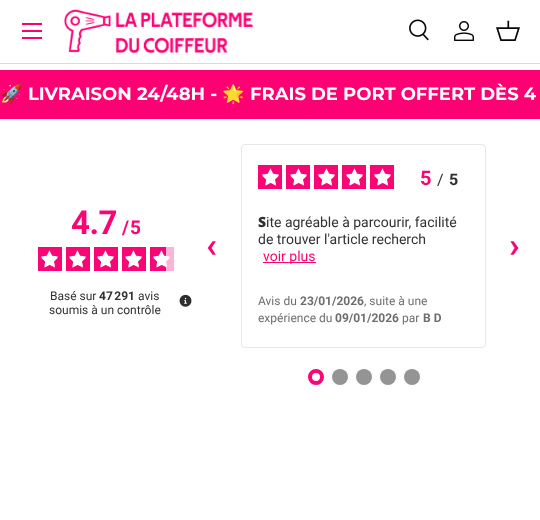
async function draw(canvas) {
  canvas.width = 540
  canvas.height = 520
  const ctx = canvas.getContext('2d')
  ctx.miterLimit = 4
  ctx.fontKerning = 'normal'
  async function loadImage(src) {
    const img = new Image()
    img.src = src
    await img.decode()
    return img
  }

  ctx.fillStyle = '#fff'
  ctx.fillRect(0, 0, 540, 520)
  ctx.fillStyle = '#dadada'
  ctx.fillRect(0, 63, 540, 1)
  ctx.fillStyle = '#fe0073'
  ctx.fillRect(22, 23, 20, 2)
  ctx.fillRect(22, 37, 20, 2)
  ctx.fillRect(22, 30, 20, 2)
  ctx.drawImage(await loadImage('image0.png'), 64, 9, 190, 45)
  ctx.drawImage(await loadImage('image1.png'), 409, 19, 20, 22)
  ctx.drawImage(await loadImage('image2.png'), 454, 21, 20, 20)
  ctx.drawImage(await loadImage('image3.png'), 496, 20, 24, 21)
  ctx.fillRect(0, 70, 540, 49)
  ctx.font = 'bold 18px Noto Color Emoji'
  ctx.fillStyle = '#fff'
  ctx.fillText('🚀', 0, 100)
  ctx.font = 'bold 18px Montserrat'
  ctx.fillText('LIVRAISON 24/48H -', 28, 100)
  ctx.font = 'bold 18px Noto Color Emoji'
  ctx.fillText('🌟', 222, 100)
  ctx.font = 'bold 18px Montserrat'
  ctx.fillText('FRAIS DE PORT OFFERT DÈS 4', 250, 100)
  ctx.letterSpacing = '-0.5px'
  ctx.font = 'bold 33px Roboto'
  ctx.fillStyle = '#fa0575'
  ctx.fillText('4.7', 71, 234)
  ctx.letterSpacing = '0px'
  ctx.font = 'bold 19px Roboto'
  ctx.fillText('/', 122, 234)
  ctx.fillText('5', 130, 234)
  ctx.fillRect(38, 247, 24, 24)
  ctx.drawImage(await loadImage('image5.png'), 41, 251, 17, 17)
  ctx.drawImage(await loadImage('image4.png'), 41, 250, 17, 17)
  ctx.fillRect(66, 247, 24, 24)
  ctx.drawImage(await loadImage('image5.png'), 69, 251, 17, 17)
  ctx.drawImage(await loadImage('image4.png'), 69, 250, 17, 17)
  ctx.fillRect(94, 247, 24, 24)
  ctx.drawImage(await loadImage('image5.png'), 97, 251, 17, 17)
  ctx.drawImage(await loadImage('image4.png'), 97, 250, 17, 17)
  ctx.fillRect(122, 247, 24, 24)
  ctx.drawImage(await loadImage('image5.png'), 125, 251, 17, 17)
  ctx.drawImage(await loadImage('image4.png'), 125, 250, 17, 17)
  ctx.fillRect(150, 247, 16, 24)
  ctx.fillStyle = '#feb4d6'
  ctx.fillRect(166, 247, 8, 24)
  ctx.drawImage(await loadImage('image7.png'), 153, 251, 17, 17)
  ctx.drawImage(await loadImage('image6.png'), 153, 250, 17, 17)
  ctx.font = '12px Roboto'
  ctx.fillStyle = '#313235'
  ctx.fillText('Basé sur', 50, 300)
  ctx.font = 'bold 12px Roboto'
  ctx.fillText('47 291', 99, 300)
  ctx.font = '12px Roboto'
  ctx.fillText('avis', 138, 300)
  ctx.fillText('soumis à un contrôle', 49, 314)
  ctx.drawImage(await loadImage('image8.png'), 179, 294, 13, 13)
  ctx.font = 'bold 35px Roboto'
  ctx.fillStyle = '#fa0575'
  ctx.fillText('‹', 206, 257)
  ctx.beginPath()
  ctx.roundRect(241.5, 144.5, 244, 203, 3.5)
  ctx.strokeStyle = '#e7e7e7'
  ctx.stroke()
  ctx.fillRect(258, 165, 24, 24)
  ctx.drawImage(await loadImage('image5.png'), 262, 169, 17, 17)
  ctx.drawImage(await loadImage('image4.png'), 262, 168, 17, 17)
  ctx.fillRect(286, 165, 24, 24)
  ctx.drawImage(await loadImage('image5.png'), 290, 169, 17, 17)
  ctx.drawImage(await loadImage('image4.png'), 290, 168, 17, 17)
  ctx.fillRect(314, 165, 24, 24)
  ctx.drawImage(await loadImage('image5.png'), 318, 169, 17, 17)
  ctx.drawImage(await loadImage('image4.png'), 318, 168, 17, 17)
  ctx.fillRect(342, 165, 24, 24)
  ctx.drawImage(await loadImage('image5.png'), 346, 169, 17, 17)
  ctx.drawImage(await loadImage('image4.png'), 346, 168, 17, 17)
  ctx.fillRect(370, 165, 24, 24)
  ctx.drawImage(await loadImage('image5.png'), 374, 169, 17, 17)
  ctx.drawImage(await loadImage('image4.png'), 374, 168, 17, 17)
  ctx.letterSpacing = '1px'
  ctx.font = 'bold 20px Roboto'
  ctx.fillText('5', 420, 185)
  ctx.font = '16px Roboto'
  ctx.fillStyle = '#2f2e2e'
  ctx.fillText('/', 437, 185)
  ctx.font = 'bold 16px Roboto'
  ctx.fillText('5', 449, 185)
  ctx.letterSpacing = '0px'
  ctx.font = '900 14px Noto Sans'
  ctx.fillStyle = '#313235'
  ctx.fillText('S', 258, 227)
  ctx.font = '14px Roboto'
  ctx.fillText('ite agréable à parcourir, facilité', 266, 227)
  ctx.fillText('de trouver l\'article recherch', 258, 244)
  ctx.fillStyle = '#fa0575'
  ctx.fillRect(263, 262, 53, 1)
  ctx.fillText('voir plus', 263, 261)
  ctx.font = '12px Roboto'
  ctx.fillStyle = '#706d6d'
  ctx.fillText('Avis du', 258, 305)
  ctx.font = 'bold 12px Roboto'
  ctx.fillText('23/01/2026', 300, 305)
  ctx.font = '12px Roboto'
  ctx.fillText(', suite à une', 364, 305)
  ctx.fillText('expérience du', 258, 322)
  ctx.font = 'bold 12px Roboto'
  ctx.fillText('09/01/2026', 335, 322)
  ctx.font = '12px Roboto'
  ctx.fillText('par', 402, 322)
  ctx.font = 'bold 12px Roboto'
  ctx.fillText('B D', 423, 322)
  ctx.font = 'bold 35px Roboto'
  ctx.fillStyle = '#fa0575'
  ctx.fillText('›', 509, 257)
  ctx.beginPath()
  ctx.arc(316, 377, 6, 0, 2 * Math.PI)
  ctx.strokeStyle = '#fa0575'
  ctx.lineWidth = 4
  ctx.stroke()
  ctx.fillStyle = '#949494'
  ctx.beginPath()
  ctx.arc(340, 377, 8, 0, 2 * Math.PI)
  ctx.fill()
  ctx.beginPath()
  ctx.arc(364, 377, 8, 0, 2 * Math.PI)
  ctx.fill()
  ctx.beginPath()
  ctx.arc(388, 377, 8, 0, 2 * Math.PI)
  ctx.fill()
  ctx.beginPath()
  ctx.arc(412, 377, 8, 0, 2 * Math.PI)
  ctx.fill()
}

draw(document.querySelector('canvas'))
